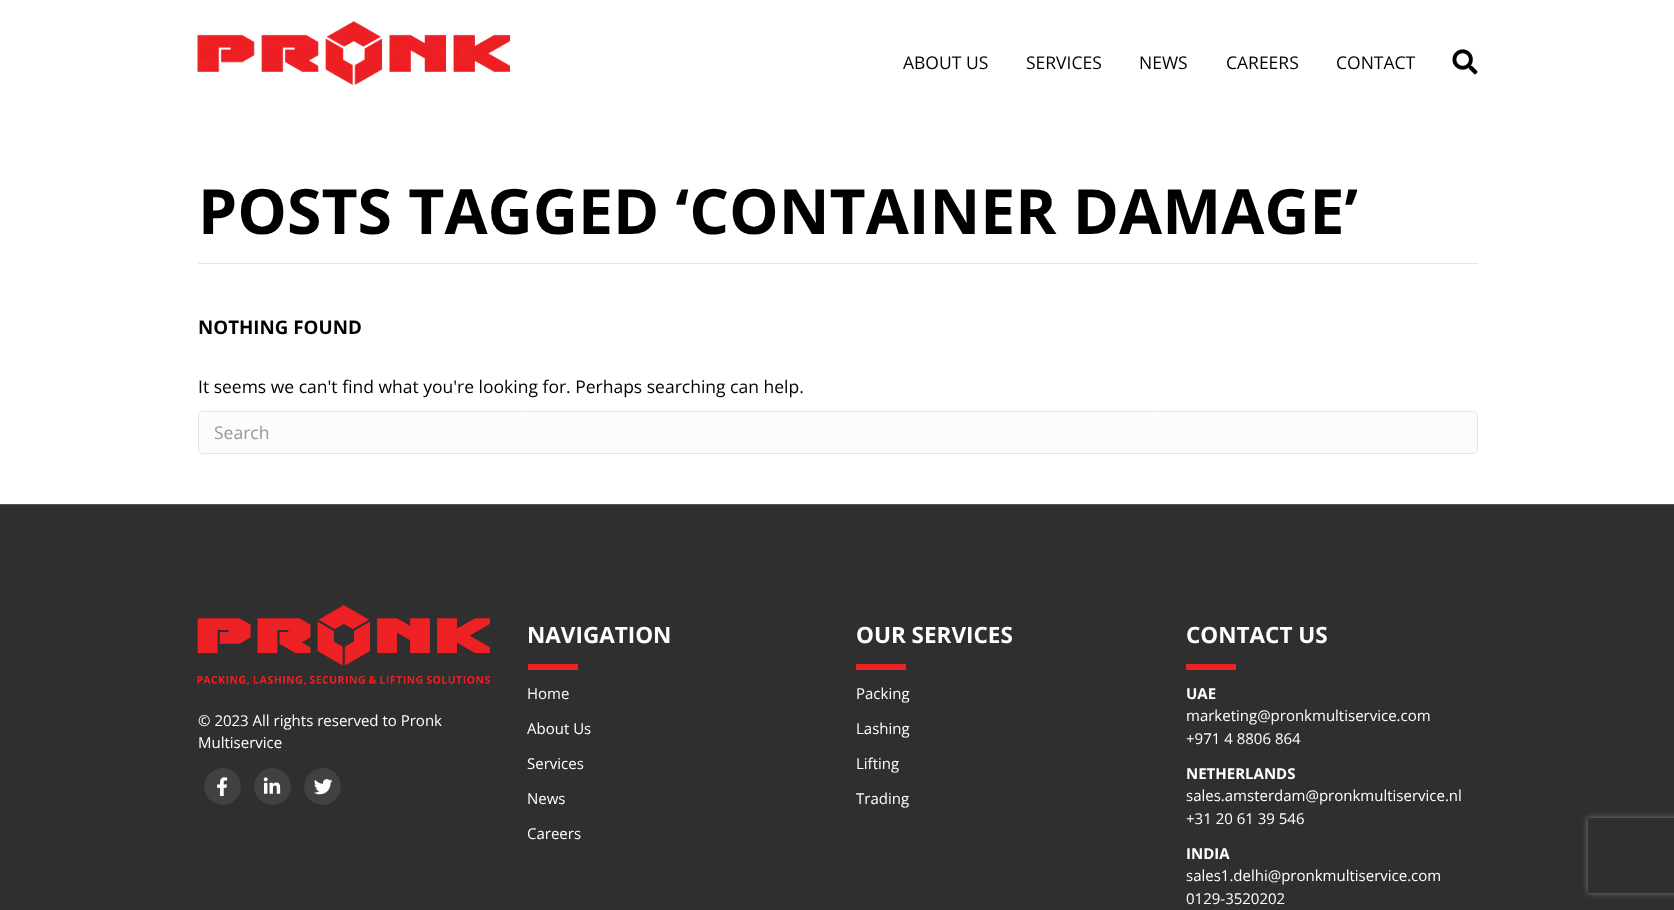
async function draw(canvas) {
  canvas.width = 1674
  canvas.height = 910
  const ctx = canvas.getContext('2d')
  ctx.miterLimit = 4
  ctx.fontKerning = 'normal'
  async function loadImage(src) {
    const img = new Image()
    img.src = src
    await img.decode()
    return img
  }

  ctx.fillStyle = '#fff'
  ctx.fillRect(0, 0, 1674, 910)
  ctx.drawImage(await loadImage('image0.png'), 197, 21, 313, 64)
  ctx.font = '17.5px Open Sans'
  ctx.fillStyle = '#000'
  ctx.fillText('ABOUT US', 903, 69)
  ctx.fillText('SERVICES', 1026, 69)
  ctx.fillText('NEWS', 1139, 69)
  ctx.fillText('CAREERS', 1226, 69)
  ctx.fillText('CONTACT', 1336, 69)
  ctx.drawImage(await loadImage('image1.png'), 1452, 49, 26, 26)
  ctx.fillStyle = '#e6e6e6'
  ctx.fillRect(198, 263, 1280, 1)
  ctx.font = 'bold 62.5px Open Sans'
  ctx.fillStyle = '#000'
  ctx.fillText('POSTS TAGGED ‘CONTAINER DAMAGE’', 198, 234)
  ctx.font = 'bold 18.75px Open Sans'
  ctx.fillText('NOTHING FOUND', 198, 334)
  ctx.font = '17.5px Open Sans'
  ctx.fillText('It seems we can\'t find what you\'re looking for. Perhaps searching can help.', 198, 393)
  ctx.fillStyle = '#fcfcfc'
  ctx.beginPath()
  ctx.roundRect(198.5, 411.5, 1279, 42, 4.5)
  ctx.fill()
  ctx.strokeStyle = '#e6e6e6'
  ctx.stroke()
  ctx.fillStyle = '#979797'
  ctx.fillText('Search', 214, 439)
  ctx.fillStyle = '#2f2f2f'
  ctx.fillRect(0, 505, 1674, 405)
  ctx.fillStyle = '#505050'
  ctx.fillRect(0, 504, 1674, 1)
  ctx.drawImage(await loadImage('image2.png'), 197, 605, 293, 80)
  ctx.font = '15px Open Sans'
  ctx.fillStyle = '#fff'
  ctx.fillText('© 2023 All rights reserved to Pronk', 198, 726)
  ctx.fillText('Multiservice', 198, 748)
  ctx.fillStyle = '#414141'
  ctx.beginPath()
  ctx.arc(222.5, 786.5, 18.5, 0, 2 * Math.PI)
  ctx.fill()
  ctx.drawImage(await loadImage('image3.png'), 217, 777, 11, 20)
  ctx.beginPath()
  ctx.arc(272.5, 786.5, 18.5, 0, 2 * Math.PI)
  ctx.fill()
  ctx.drawImage(await loadImage('image4.png'), 263, 777, 18, 17)
  ctx.beginPath()
  ctx.arc(322.5, 786.5, 18.5, 0, 2 * Math.PI)
  ctx.fill()
  ctx.drawImage(await loadImage('image5.png'), 314, 779, 19, 16)
  ctx.font = 'bold 22.5px Open Sans'
  ctx.fillStyle = '#fff'
  ctx.fillText('NAVIGATION', 527, 643)
  ctx.fillStyle = '#ed2224'
  ctx.fillRect(528, 664, 50, 6)
  ctx.font = '15px Open Sans'
  ctx.fillStyle = '#fff'
  ctx.fillText('Home', 527, 699)
  ctx.fillText('About Us', 527, 734)
  ctx.fillText('Services', 527, 769)
  ctx.fillText('News', 527, 804)
  ctx.fillText('Careers', 527, 839)
  ctx.font = 'bold 22.5px Open Sans'
  ctx.fillText('OUR SERVICES', 856, 643)
  ctx.fillStyle = '#ed2224'
  ctx.fillRect(856, 664, 50, 6)
  ctx.font = '15px Open Sans'
  ctx.fillStyle = '#fff'
  ctx.fillText('Packing', 856, 699)
  ctx.fillText('Lashing', 856, 734)
  ctx.fillText('Lifting', 856, 769)
  ctx.fillText('Trading', 856, 804)
  ctx.font = 'bold 22.5px Open Sans'
  ctx.fillText('CONTACT US', 1186, 643)
  ctx.fillStyle = '#ed2224'
  ctx.fillRect(1186, 664, 50, 6)
  ctx.font = 'bold 15px Open Sans'
  ctx.fillStyle = '#fff'
  ctx.fillText('UAE', 1186, 699)
  ctx.font = '15px Open Sans'
  ctx.fillText('marketing@pronkmultiservice.com', 1186, 721)
  ctx.fillText('+971 4 8806 864', 1186, 744)
  ctx.font = 'bold 15px Open Sans'
  ctx.fillText('NETHERLANDS', 1186, 779)
  ctx.font = '15px Open Sans'
  ctx.fillText('sales.amsterdam@pronkmultiservice.nl', 1186, 801)
  ctx.fillText('+31 20 61 39 546', 1186, 824)
  ctx.font = 'bold 15px Open Sans'
  ctx.fillText('INDIA', 1186, 859)
  ctx.font = '15px Open Sans'
  ctx.fillText('sales1.delhi@pronkmultiservice.com', 1186, 881)
  ctx.fillText('0129-3520202', 1186, 904)
  ctx.save()
  ctx.beginPath()
  ctx.moveTo(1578, 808)
  ctx.lineTo(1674, 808)
  ctx.lineTo(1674, 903)
  ctx.lineTo(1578, 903)
  ctx.closePath()
  ctx.moveTo(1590.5, 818)
  ctx.lineTo(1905.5, 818)
  ctx.bezierCurveTo(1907, 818, 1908, 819, 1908, 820.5)
  ctx.lineTo(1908, 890.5)
  ctx.bezierCurveTo(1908, 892, 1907, 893, 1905.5, 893)
  ctx.lineTo(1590.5, 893)
  ctx.bezierCurveTo(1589, 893, 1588, 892, 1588, 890.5)
  ctx.lineTo(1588, 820.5)
  ctx.bezierCurveTo(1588, 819, 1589, 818, 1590.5, 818)
  ctx.closePath()
  ctx.clip('evenodd')
  ctx.fillStyle = '#808080'
  ctx.filter = 'blur(3px)'
  ctx.beginPath()
  ctx.roundRect(1588, 818, 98, 75, 2.5)
  ctx.fill()
  ctx.filter = 'none'
  ctx.restore()
}

draw(document.querySelector('canvas'))
